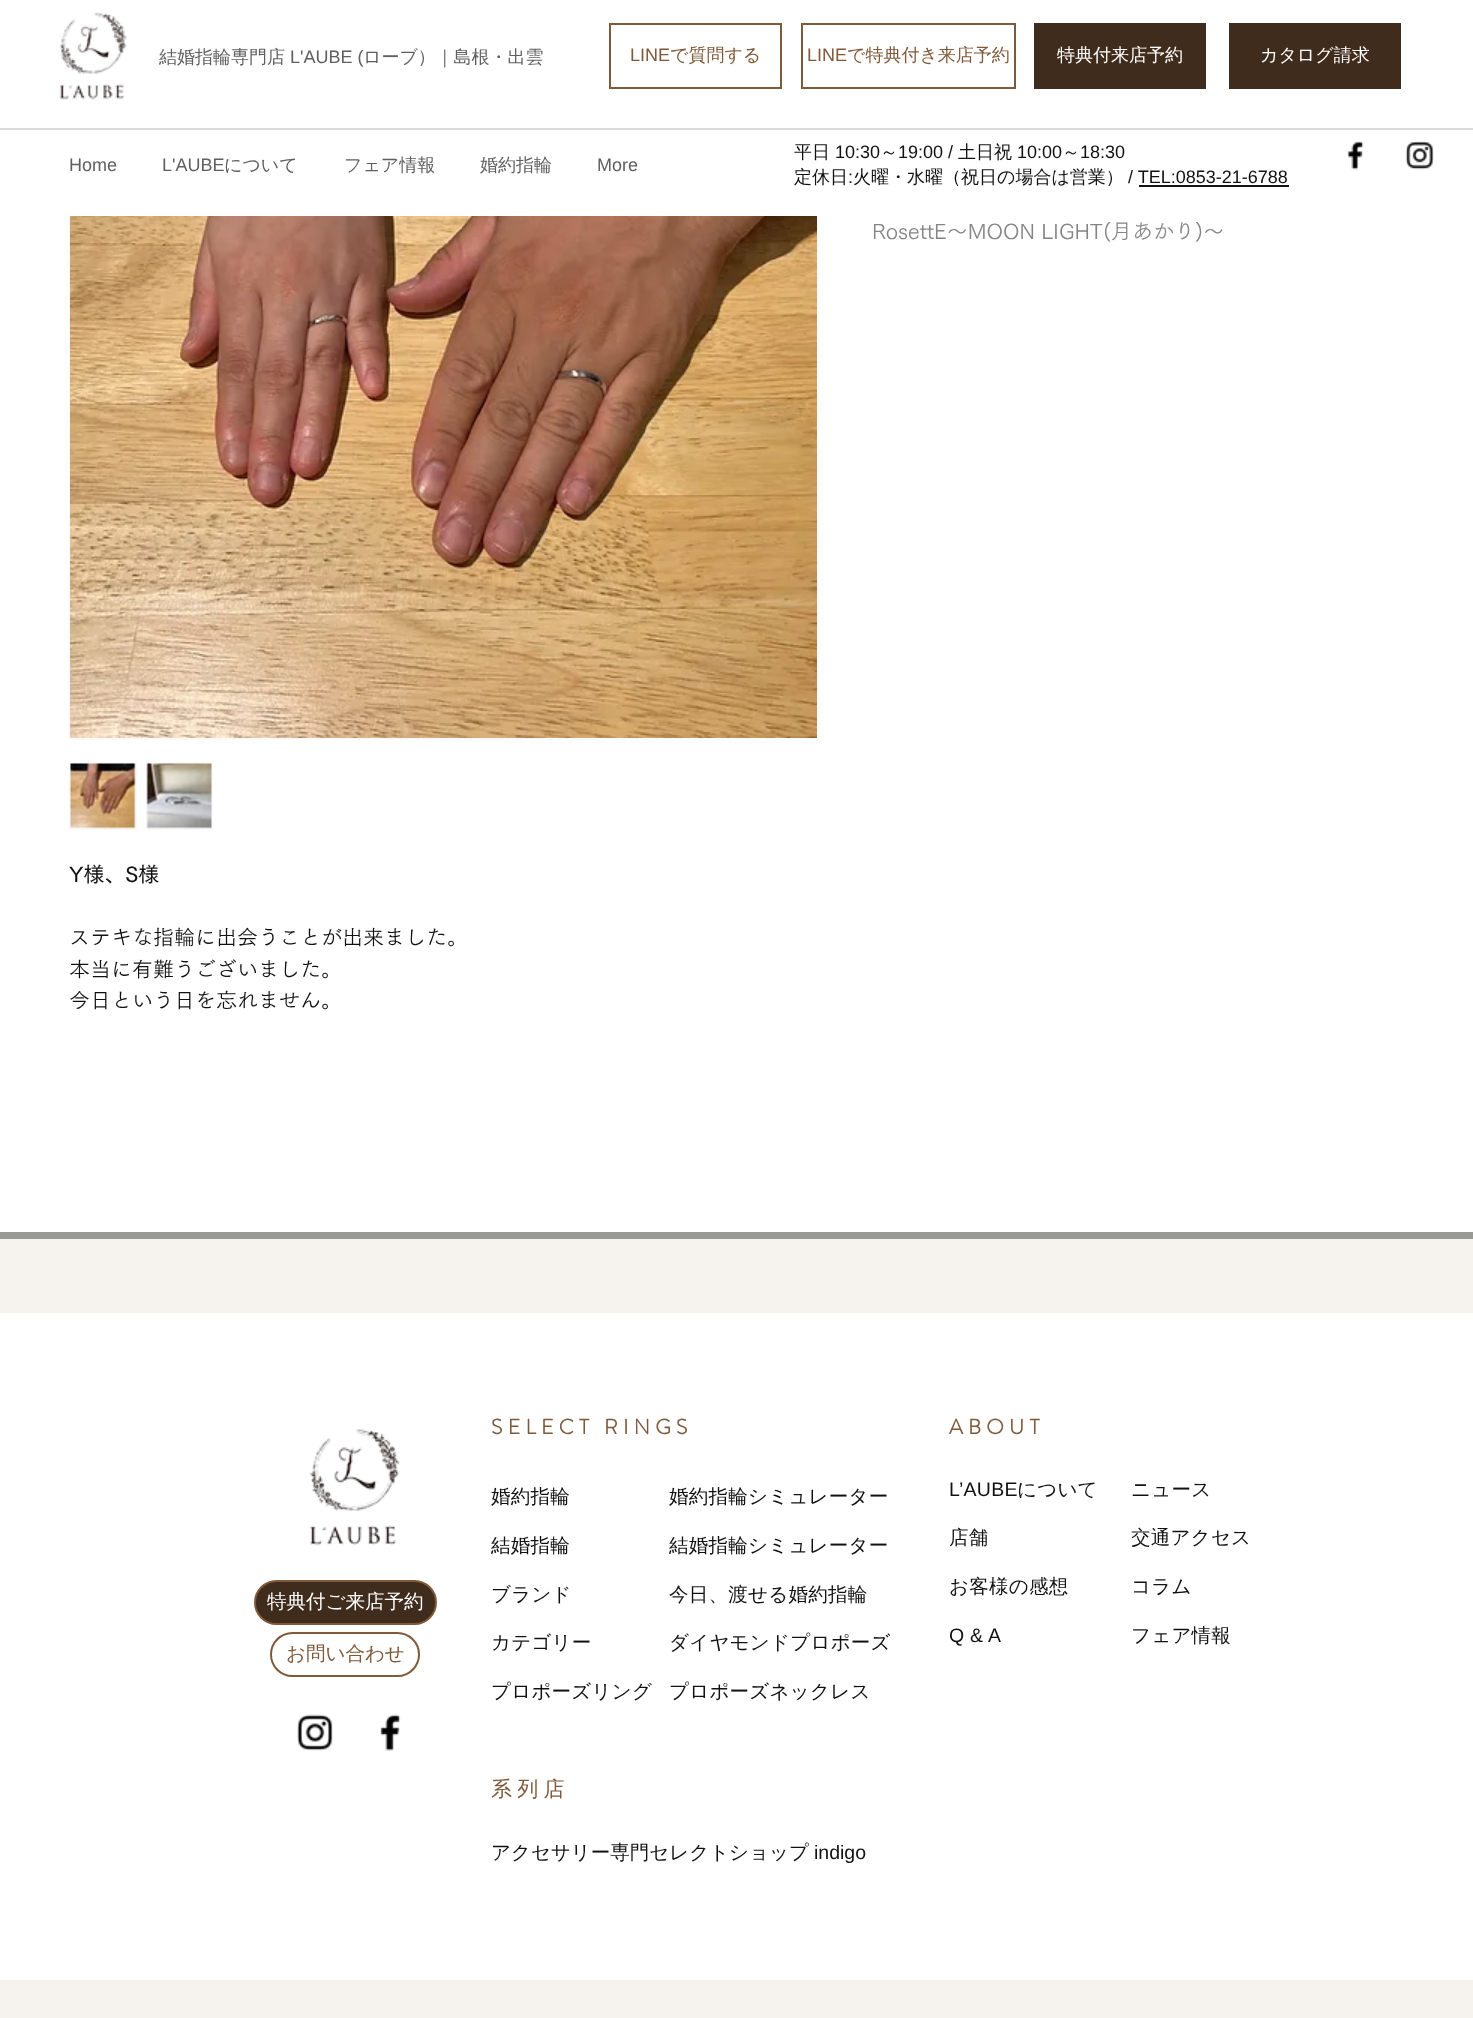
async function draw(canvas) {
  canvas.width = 1473
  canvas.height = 2018
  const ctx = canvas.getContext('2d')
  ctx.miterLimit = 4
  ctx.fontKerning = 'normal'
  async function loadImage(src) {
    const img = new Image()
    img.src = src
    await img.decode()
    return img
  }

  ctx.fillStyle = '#fff'
  ctx.fillRect(0, 0, 1473, 2018)
  ctx.strokeStyle = '#fafafa'
  ctx.lineWidth = 2
  ctx.strokeRect(70, -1, 748, 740)
  ctx.fillRect(69, 0, 750, 216)
  ctx.drawImage(await loadImage('image0.png'), 59, 12, 69, 88)
  ctx.font = '500 18px WenQuanYi Zen Hei'
  ctx.fillStyle = '#605e5e'
  ctx.fillText('結婚指輪専門店', 159, 63)
  ctx.font = '18px Liberation Sans'
  ctx.fillText('L\'AUBE (', 290, 63)
  ctx.font = '500 18px WenQuanYi Zen Hei'
  ctx.fillText('ローブ）｜島根・出雲', 363, 63)
  ctx.strokeStyle = '#7f5939'
  ctx.strokeRect(610, 24, 171, 64)
  ctx.font = '18px Liberation Sans'
  ctx.fillStyle = '#7f5939'
  ctx.fillText('LINE', 630, 61)
  ctx.font = '500 18px WenQuanYi Zen Hei'
  ctx.fillText('で質問する', 670, 61)
  ctx.strokeRect(802, 24, 213, 64)
  ctx.font = '18px Liberation Sans'
  ctx.fillText('LINE', 807, 61)
  ctx.font = '500 18px WenQuanYi Zen Hei'
  ctx.fillText('で特典付き来店予約', 847, 61)
  ctx.fillStyle = '#402c1c'
  ctx.fillRect(1034, 23, 172, 66)
  ctx.fillStyle = '#fff'
  ctx.fillText('特典付来店予約', 1057, 61)
  ctx.fillStyle = '#402c1c'
  ctx.fillRect(1229, 23, 172, 66)
  ctx.fillStyle = '#fff'
  ctx.fillText('カタログ請求', 1260, 61)
  ctx.fillStyle = '#dbdbdb'
  ctx.fillRect(0, 128, 1473, 2)
  ctx.font = '18px Liberation Sans'
  ctx.fillStyle = '#605e5e'
  ctx.fillText('Home', 69, 171)
  ctx.fillText('L\'AUBE', 162, 171)
  ctx.font = '500 18px WenQuanYi Zen Hei'
  ctx.fillText('について', 224, 171)
  ctx.fillText('フェア情報', 344, 171)
  ctx.fillText('婚約指輪', 480, 171)
  ctx.font = '18px Liberation Sans'
  ctx.fillText('More', 597, 171)
  ctx.font = '500 18px WenQuanYi Zen Hei'
  ctx.fillStyle = '#111'
  ctx.fillText('平日', 794, 158)
  ctx.font = '18px Liberation Sans'
  ctx.fillText('10:30', 835, 158)
  ctx.font = '500 18px WenQuanYi Zen Hei'
  ctx.fillText('～', 880, 158)
  ctx.font = '18px Liberation Sans'
  ctx.fillText('19:00 /', 898, 158)
  ctx.font = '500 18px WenQuanYi Zen Hei'
  ctx.fillText('土日祝', 958, 158)
  ctx.font = '18px Liberation Sans'
  ctx.fillText('10:00', 1017, 158)
  ctx.font = '500 18px WenQuanYi Zen Hei'
  ctx.fillText('～', 1062, 158)
  ctx.font = '18px Liberation Sans'
  ctx.fillText('18:30', 1080, 158)
  ctx.font = '500 18px WenQuanYi Zen Hei'
  ctx.fillText('定休日', 794, 183)
  ctx.font = '18px Liberation Sans'
  ctx.fillText(':', 848, 183)
  ctx.font = '500 18px WenQuanYi Zen Hei'
  ctx.fillText('火曜・水曜（祝日の場合は営業）', 853, 183)
  ctx.font = '18px Liberation Sans'
  ctx.fillText('/ TEL:0853-21-6788', 1128, 183)
  ctx.fillRect(1139, 185, 150, 2)
  ctx.drawImage(await loadImage('image1.png'), 1347, 141, 17, 29)
  ctx.drawImage(await loadImage('image2.png'), 1405, 141, 29, 29)
  ctx.font = '21px "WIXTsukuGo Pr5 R"'
  ctx.fillStyle = '#858585'
  ctx.fillText('RosettE～MOON LIGHT(月あかり)～', 872, 239)
  ctx.drawImage(await loadImage('image3.png'), 70, 216, 747, 522)
  ctx.fillStyle = '#fafafa'
  ctx.fillRect(69, 762, 68, 68)
  ctx.drawImage(await loadImage('image4.png'), 70, 763, 66, 66)
  ctx.fillRect(146, 762, 67, 68)
  ctx.drawImage(await loadImage('image5.png'), 146, 763, 66, 66)
  ctx.font = '600 21px "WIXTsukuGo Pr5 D"'
  ctx.fillStyle = '#111'
  ctx.fillText('Y様、S様', 69, 882)
  ctx.font = '21px "WIXTsukuGo Pr5 R"'
  ctx.fillText('ステキな指輪に出会うことが出来ました。', 69, 945)
  ctx.fillText('本当に有難うございました。', 69, 977)
  ctx.fillText('今日という日を忘れません。', 69, 1008)
  ctx.fillStyle = '#f6f3ef'
  ctx.fillRect(0, 1239, 1473, 779)
  ctx.fillStyle = '#999997'
  ctx.fillRect(0, 1232, 1473, 7)
  ctx.fillStyle = '#fff'
  ctx.fillRect(0, 1313, 1473, 667)
  ctx.drawImage(await loadImage('image6.png'), 309, 1429, 91, 117)
  ctx.fillStyle = '#402c1c'
  ctx.beginPath()
  ctx.roundRect(255, 1581, 181, 43, 21.5)
  ctx.fill()
  ctx.stroke()
  ctx.font = '500 19.5px WenQuanYi Zen Hei'
  ctx.fillStyle = '#fff'
  ctx.fillText('特典付ご来店予約', 267, 1608)
  ctx.beginPath()
  ctx.roundRect(271, 1633, 148, 43, 21.5)
  ctx.stroke()
  ctx.fillStyle = '#7f5939'
  ctx.fillText('お問い合わせ', 286, 1660)
  ctx.drawImage(await loadImage('image7.png'), 297, 1714, 36, 37)
  ctx.drawImage(await loadImage('image8.png'), 380, 1714, 21, 37)
  ctx.letterSpacing = '5.25px'
  ctx.font = 'bold 21px "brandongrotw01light"'
  ctx.fillText('SELECT RINGS', 491, 1434)
  ctx.letterSpacing = '0.25px'
  ctx.font = '500 19.5px WenQuanYi Zen Hei'
  ctx.fillStyle = '#111'
  ctx.fillText('婚約指輪', 491, 1503)
  ctx.fillText('結婚指輪', 491, 1552)
  ctx.fillText('ブランド', 491, 1601)
  ctx.fillText('カテゴリー', 491, 1649)
  ctx.fillText('プロポーズリング', 491, 1698)
  ctx.fillText('婚約指輪シミュレーター', 669, 1503)
  ctx.fillText('結婚指輪シミュレーター', 669, 1552)
  ctx.fillText('今日、渡せる婚約指輪', 669, 1601)
  ctx.fillText('ダイヤモンドプロポーズ', 669, 1649)
  ctx.fillText('プロポーズネックレス', 669, 1698)
  ctx.letterSpacing = '5.25px'
  ctx.font = '500 21px WenQuanYi Zen Hei'
  ctx.fillStyle = '#7f5939'
  ctx.fillText('系列店', 491, 1796)
  ctx.letterSpacing = '0px'
  ctx.font = '500 19.5px WenQuanYi Zen Hei'
  ctx.fillStyle = '#111'
  ctx.fillText('アクセサリー専門セレクトショップ', 491, 1859)
  ctx.font = '19.5px Liberation Sans'
  ctx.fillText('indigo', 814, 1859)
  ctx.letterSpacing = '5.25px'
  ctx.font = 'bold 21px "brandongrotw01light"'
  ctx.fillStyle = '#7f5939'
  ctx.fillText('ABOUT', 949, 1434)
  ctx.letterSpacing = '0.25px'
  ctx.font = '19.5px Liberation Sans'
  ctx.fillStyle = '#111'
  ctx.fillText('L’AUBE', 949, 1496)
  ctx.font = '500 19.5px WenQuanYi Zen Hei'
  ctx.fillText('について', 1017, 1496)
  ctx.fillText('店舗', 949, 1544)
  ctx.fillText('お客様の感想', 949, 1593)
  ctx.font = '19.5px Liberation Sans'
  ctx.fillText('Q & A', 949, 1642)
  ctx.font = '500 19.5px WenQuanYi Zen Hei'
  ctx.fillText('ニュース', 1131, 1496)
  ctx.fillText('交通アクセス', 1131, 1544)
  ctx.fillText('コラム', 1131, 1593)
  ctx.fillText('フェア情報', 1131, 1642)
}

draw(document.querySelector('canvas'))
